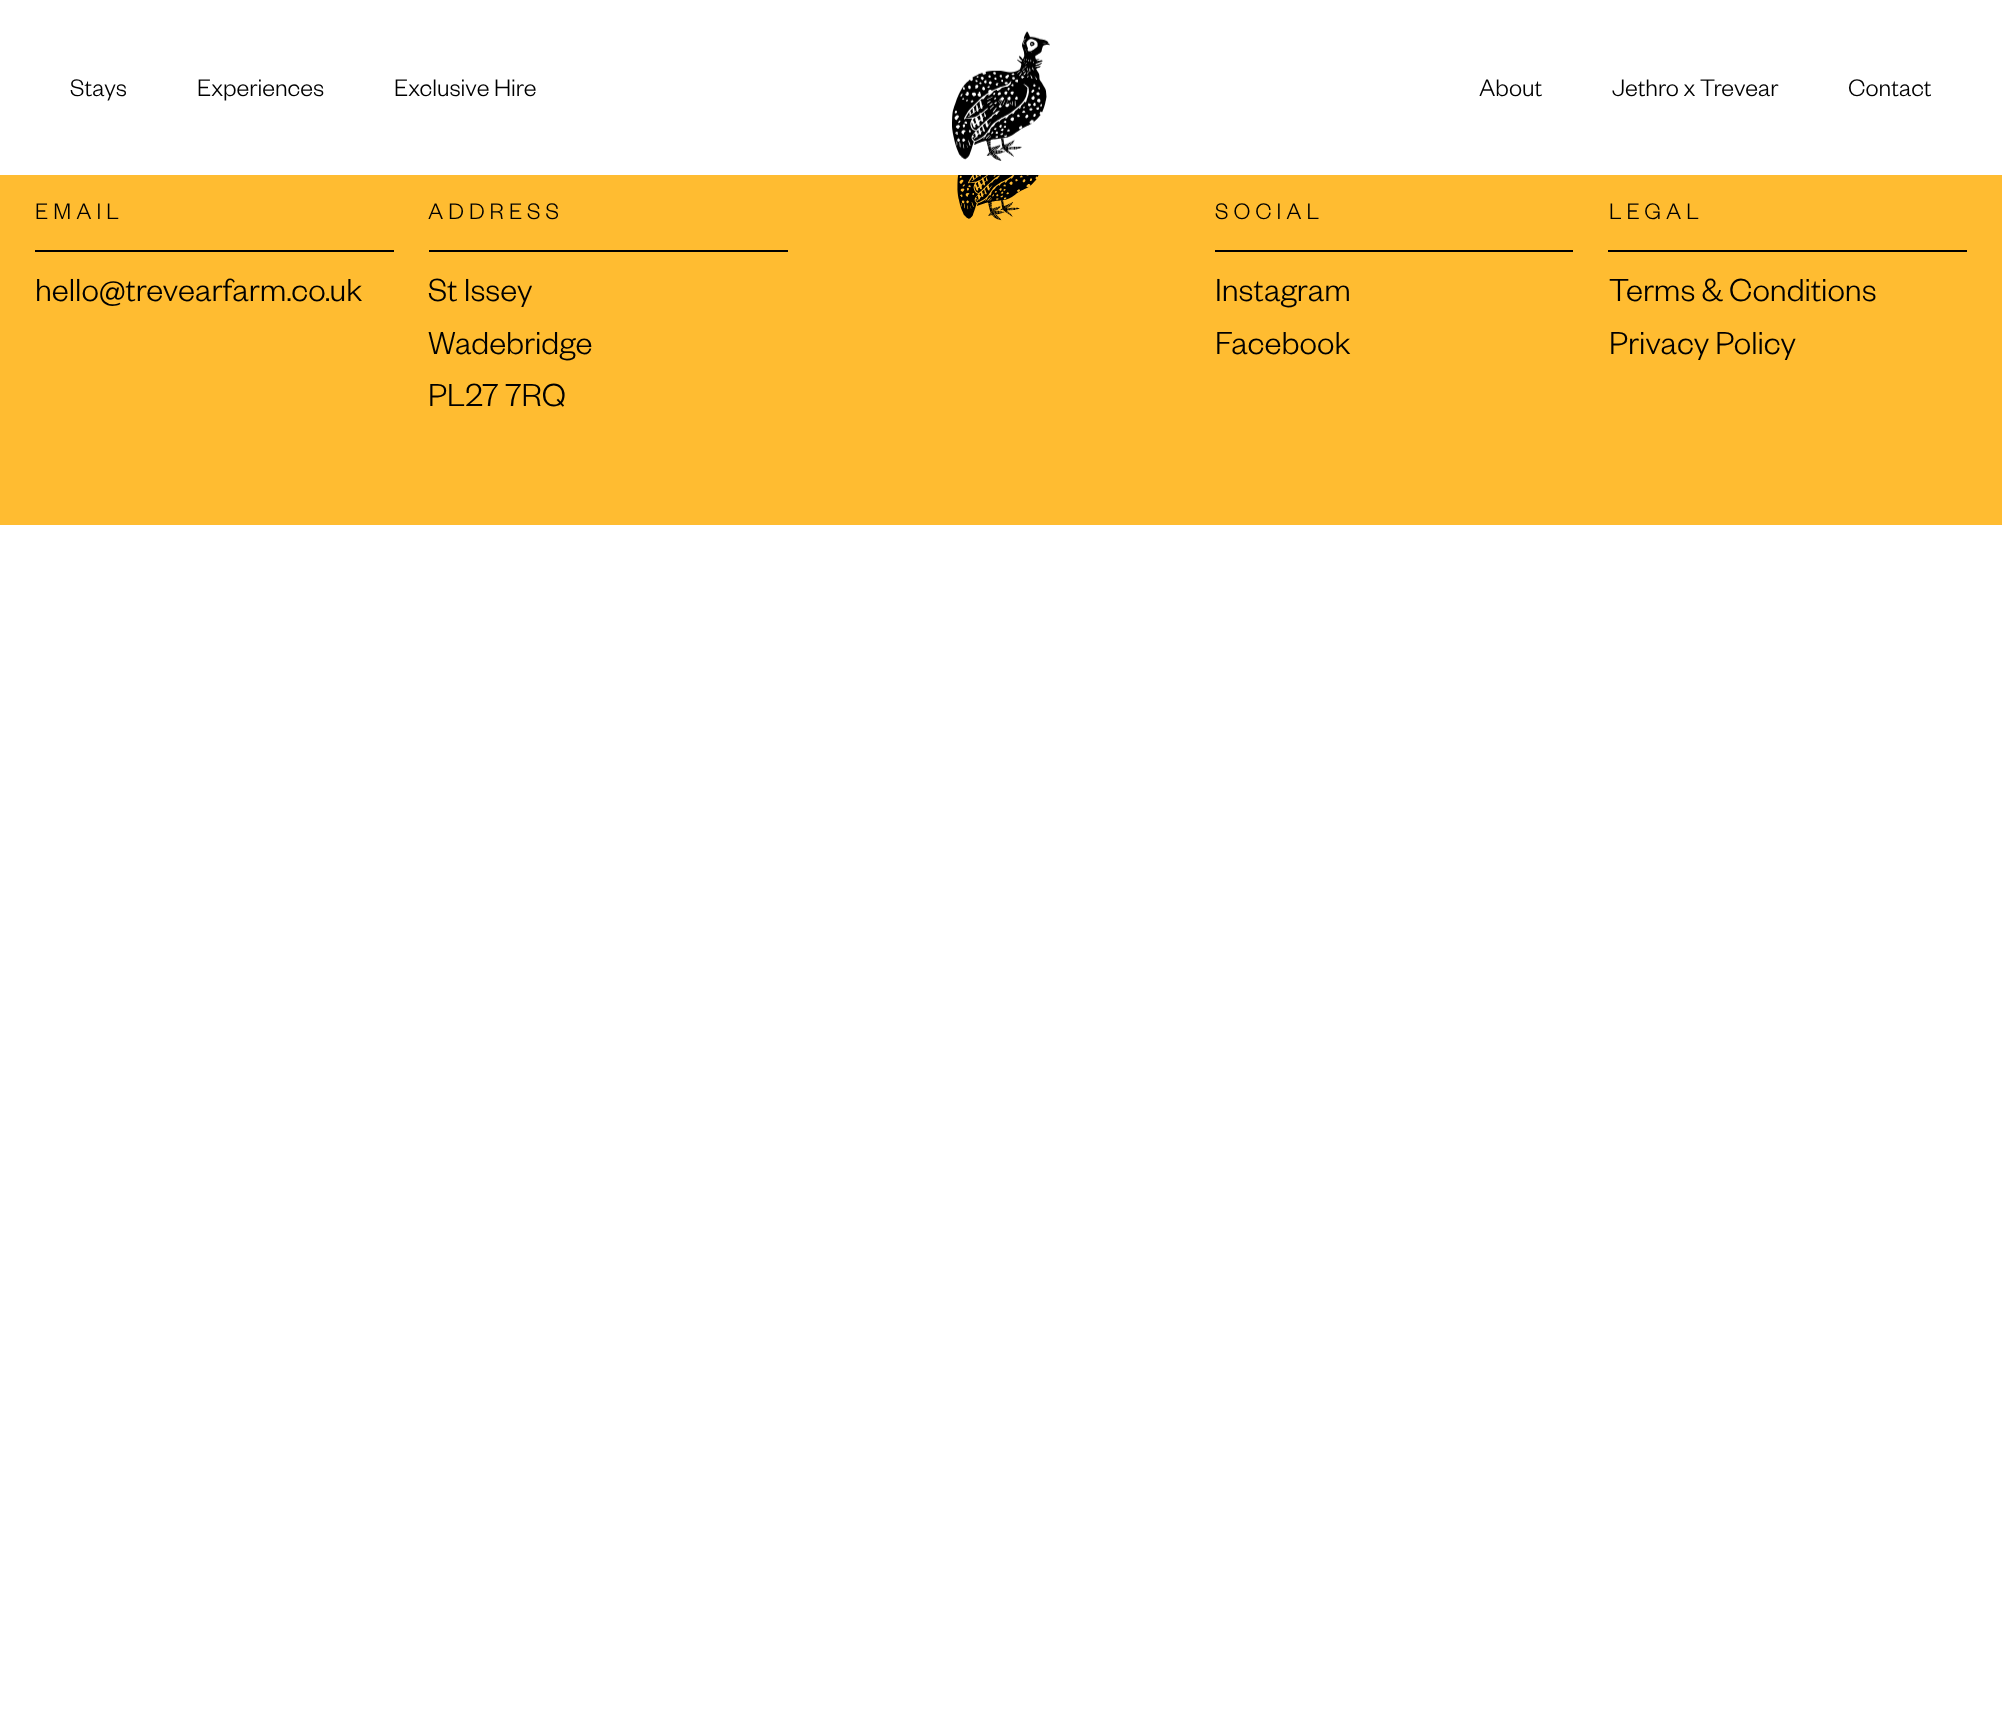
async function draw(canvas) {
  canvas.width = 2002
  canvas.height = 1711
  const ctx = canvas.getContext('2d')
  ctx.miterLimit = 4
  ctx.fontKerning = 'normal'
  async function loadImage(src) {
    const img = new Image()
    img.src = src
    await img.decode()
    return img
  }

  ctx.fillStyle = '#fff'
  ctx.fillRect(0, 0, 2002, 1711)
  ctx.font = '300 26.25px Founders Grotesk'
  ctx.fillStyle = '#000'
  ctx.fillText('Stays', 70, 96)
  ctx.fillText('Experiences', 197, 96)
  ctx.fillText('Exclusive Hire', 394, 96)
  ctx.drawImage(await loadImage('image0.png'), 952, 31, 98, 130)
  ctx.fillText('About', 1479, 96)
  ctx.fillText('Jethro x Trevear', 1612, 96)
  ctx.fillText('Contact', 1848, 96)
  ctx.fillStyle = '#ffbc31'
  ctx.fillRect(0, 175, 2002, 350)
  ctx.drawImage(await loadImage('image1.png'), 957, 175, 82, 46)
  ctx.fillStyle = '#000'
  ctx.fillRect(35, 250, 359, 2)
  ctx.letterSpacing = '5px'
  ctx.font = '300 24.5px Founders Grotesk'
  ctx.fillText('EMAIL', 35, 219)
  ctx.letterSpacing = '0px'
  ctx.font = '300 35px Founders Grotesk'
  ctx.fillText('hello@trevearfarm.co.uk', 35, 301)
  ctx.fillRect(429, 250, 359, 2)
  ctx.letterSpacing = '5px'
  ctx.font = '300 24.5px Founders Grotesk'
  ctx.fillText('ADDRESS', 428, 219)
  ctx.letterSpacing = '0px'
  ctx.font = '300 35px Founders Grotesk'
  ctx.fillText('St Issey', 428, 301)
  ctx.fillText('Wadebridge', 428, 354)
  ctx.fillText('PL27 7RQ', 428, 406)
  ctx.fillRect(1215, 250, 358, 2)
  ctx.letterSpacing = '5px'
  ctx.font = '300 24.5px Founders Grotesk'
  ctx.fillText('SOCIAL', 1215, 219)
  ctx.letterSpacing = '0px'
  ctx.font = '300 35px Founders Grotesk'
  ctx.fillText('Instagram', 1215, 301)
  ctx.fillText('Facebook', 1215, 354)
  ctx.fillRect(1608, 250, 359, 2)
  ctx.letterSpacing = '5px'
  ctx.font = '300 24.5px Founders Grotesk'
  ctx.fillText('LEGAL', 1609, 219)
  ctx.letterSpacing = '0px'
  ctx.font = '300 35px Founders Grotesk'
  ctx.fillText('Terms & Conditions', 1609, 301)
  ctx.fillText('Privacy Policy', 1609, 354)
}

draw(document.querySelector('canvas'))
